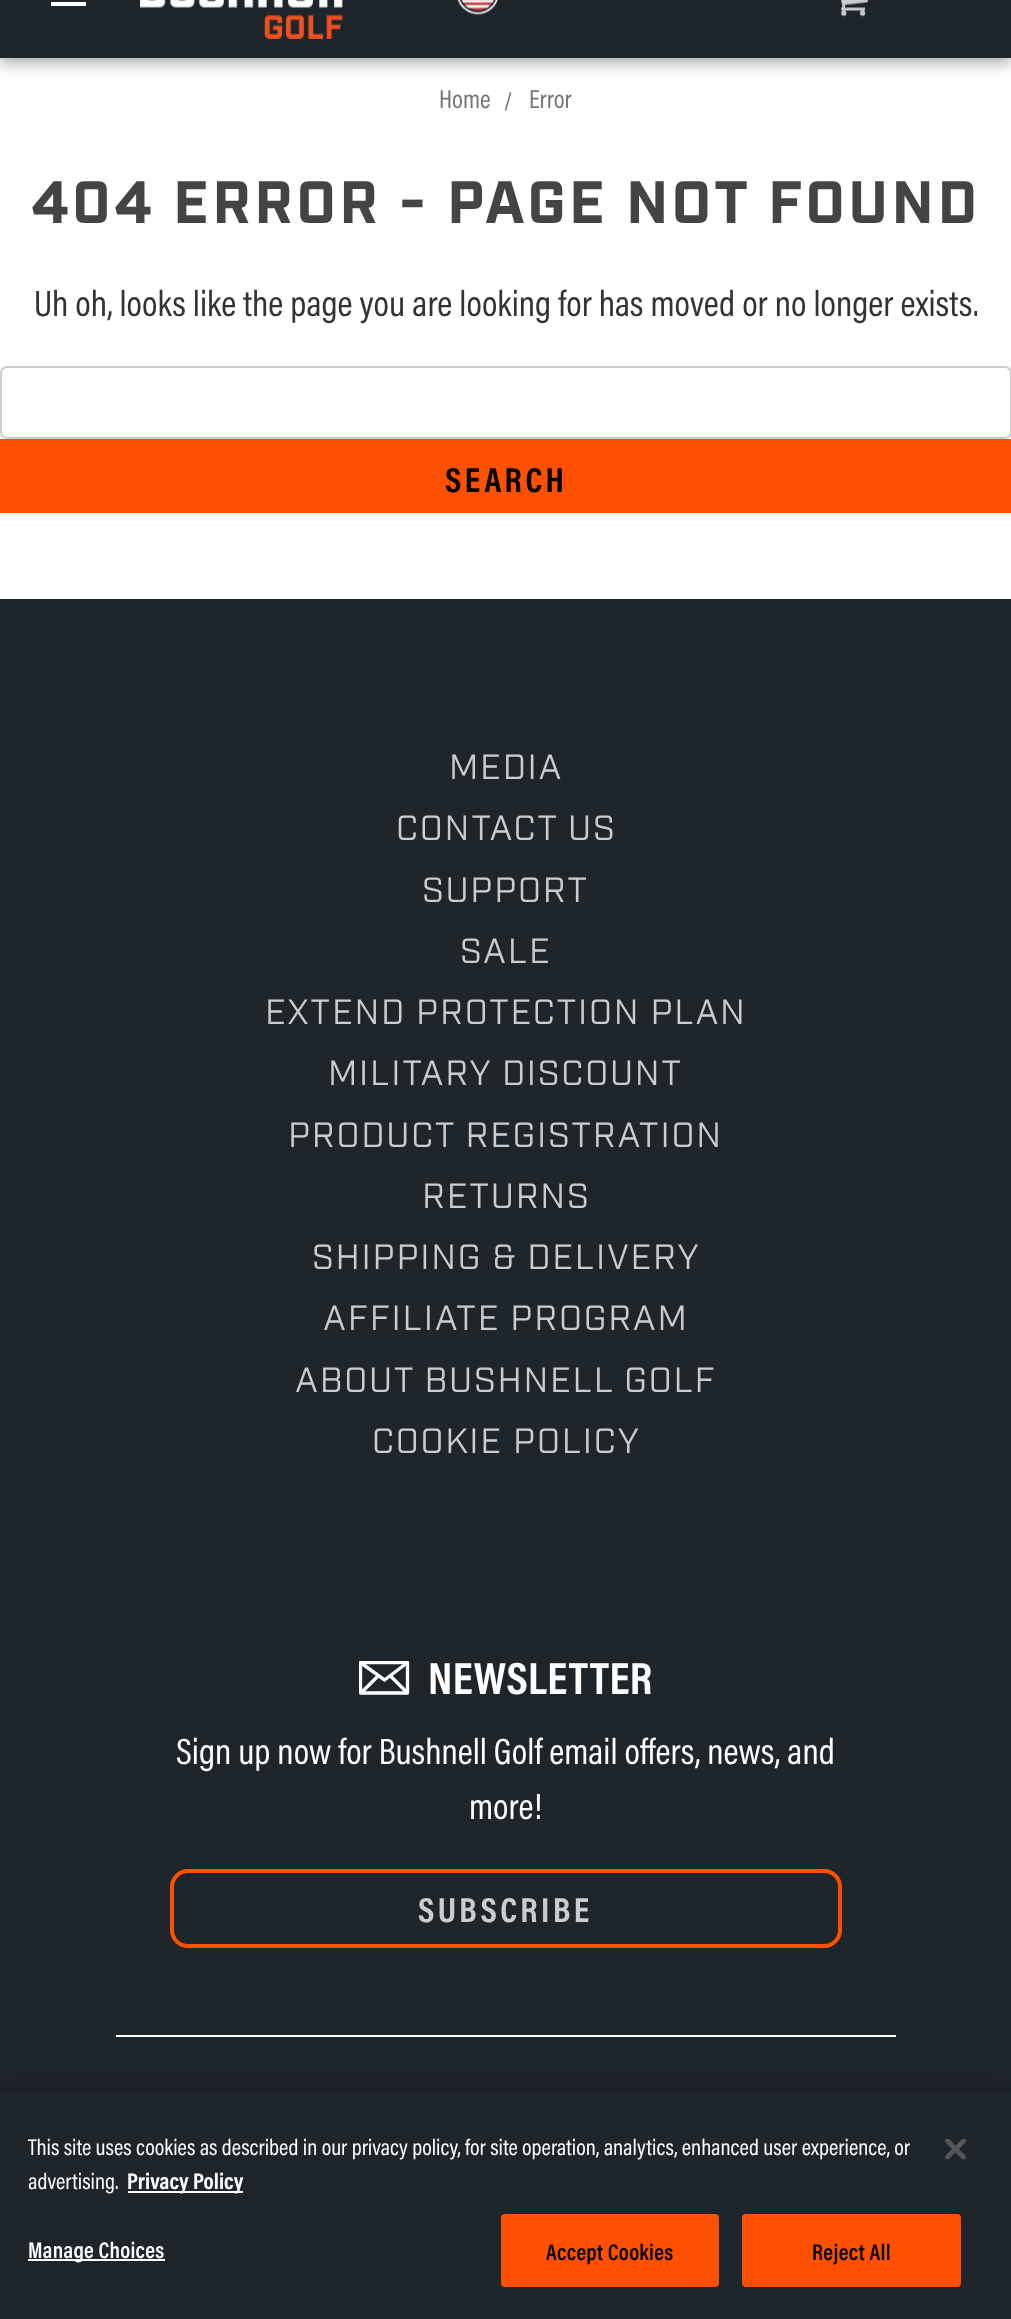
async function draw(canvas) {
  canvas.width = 1011
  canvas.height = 2319
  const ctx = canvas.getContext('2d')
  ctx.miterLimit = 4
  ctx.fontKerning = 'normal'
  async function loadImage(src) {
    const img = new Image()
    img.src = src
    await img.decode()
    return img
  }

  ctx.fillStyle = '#fff'
  ctx.fillRect(0, 0, 1011, 2319)
  ctx.fillStyle = '#555759b3'
  ctx.filter = 'blur(9px)'
  ctx.beginPath()
  ctx.rect(-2, -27, 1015, 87)
  ctx.fill()
  ctx.filter = 'none'
  ctx.fillStyle = '#1e252b'
  ctx.fillRect(0, 0, 1011, 58)
  ctx.fillStyle = '#fff'
  ctx.fillRect(51, 2, 35, 4)
  ctx.drawImage(await loadImage('image0.png'), 140, 0, 203, 39)
  ctx.drawImage(await loadImage('image1.png'), 457, 0, 41, 15)
  ctx.drawImage(await loadImage('image2.png'), 841, 0, 27, 17)
  ctx.font = '26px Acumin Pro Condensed'
  ctx.fillStyle = '#757575'
  ctx.fillText('Home', 439, 108)
  ctx.fillText('/', 504, 110)
  ctx.fillText('Error', 529, 108)
  ctx.letterSpacing = '3.5px'
  ctx.font = 'bold 59.5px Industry'
  ctx.fillStyle = '#444'
  ctx.fillText('404 ERROR - PAGE NOT FOUND', 31, 223)
  ctx.letterSpacing = '0px'
  ctx.font = '36.75px Acumin Pro Condensed'
  ctx.fillStyle = '#333'
  ctx.fillText('Uh oh, looks like the page you are looking for has moved or no longer exists.', 34, 316)
  ctx.beginPath()
  ctx.roundRect(1, 367, 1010, 71, 6)
  ctx.strokeStyle = '#ccc'
  ctx.lineWidth = 2
  ctx.stroke()
  ctx.fillStyle = '#fe5000'
  ctx.fillRect(0, 439, 1011, 74)
  ctx.letterSpacing = '3.5px'
  ctx.font = 'bold 35px Acumin Pro Condensed'
  ctx.fillStyle = '#000'
  ctx.fillText('SEARCH', 445, 492)
  ctx.fillStyle = '#1e252b'
  ctx.fillRect(0, 599, 1011, 1494)
  ctx.fillStyle = '#fff'
  ctx.fillRect(116, 2035, 780, 2)
  ctx.letterSpacing = '1.75px'
  ctx.font = '35px Industry'
  ctx.fillStyle = '#ccc'
  ctx.fillText('MEDIA', 449, 779)
  ctx.fillText('CONTACT US', 396, 840)
  ctx.fillText('SUPPORT', 422, 902)
  ctx.fillText('SALE', 460, 963)
  ctx.fillText('EXTEND PROTECTION PLAN', 265, 1024)
  ctx.fillText('MILITARY DISCOUNT', 328, 1085)
  ctx.fillText('PRODUCT REGISTRATION', 288, 1147)
  ctx.fillText('RETURNS', 422, 1208)
  ctx.fillText('SHIPPING & DELIVERY', 312, 1269)
  ctx.fillText('AFFILIATE PROGRAM', 323, 1330)
  ctx.fillText('ABOUT BUSHNELL GOLF', 295, 1392)
  ctx.fillText('COOKIE POLICY', 372, 1453)
  ctx.save()
  ctx.beginPath()
  ctx.rect(359, 1661, 51, 35)
  ctx.clip()
  ctx.beginPath()
  ctx.moveTo(407.5, 1662.5)
  ctx.lineTo(360.5, 1662.5)
  ctx.lineTo(360.5, 1693)
  ctx.lineTo(407.5, 1693)
  ctx.closePath()
  ctx.strokeStyle = '#fff'
  ctx.lineWidth = 3.3
  ctx.lineCap = 'round'
  ctx.lineJoin = 'round'
  ctx.stroke()
  ctx.restore()
  ctx.beginPath()
  ctx.moveTo(362, 1692)
  ctx.lineTo(378, 1676)
  ctx.moveTo(406.5, 1692)
  ctx.lineTo(390.5, 1676)
  ctx.moveTo(361, 1663)
  ctx.lineTo(384.5, 1680)
  ctx.lineTo(407, 1663)
  ctx.strokeStyle = '#fff'
  ctx.lineWidth = 3.4
  ctx.stroke()
  ctx.letterSpacing = '0.5px'
  ctx.font = 'bold 45.5px Acumin Pro Condensed'
  ctx.fillStyle = '#fff'
  ctx.fillText('NEWSLETTER', 428, 1694)
  ctx.letterSpacing = '0px'
  ctx.font = '36.75px Acumin Pro Condensed'
  ctx.fillText('Sign up now for Bushnell Golf email offers, news, and', 176, 1764)
  ctx.fillText('more!', 469, 1819)
  ctx.beginPath()
  ctx.roundRect(172, 1871, 668, 75, 16)
  ctx.strokeStyle = '#fe5000'
  ctx.lineWidth = 4
  ctx.stroke()
  ctx.letterSpacing = '3.5px'
  ctx.font = 'bold 35px Acumin Pro Condensed'
  ctx.fillStyle = '#ccc'
  ctx.fillText('SUBSCRIBE', 418, 1922)
  ctx.fillStyle = '#00000033'
  ctx.filter = 'blur(16px)'
  ctx.beginPath()
  ctx.rect(0, 2093, 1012, 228)
  ctx.fill()
  ctx.filter = 'none'
  ctx.fillStyle = '#1e252b'
  ctx.fillRect(0, 2093, 1011, 226)
  ctx.letterSpacing = '0px'
  ctx.font = '22.75px Acumin Pro Condensed'
  ctx.fillStyle = '#fff'
  ctx.fillText('This site uses cookies as described in our privacy policy, for site operation, analytics, enhanced user experience, or', 28, 2155)
  ctx.fillText('advertising.', 28, 2189)
  ctx.fillRect(128, 2191, 115, 2)
  ctx.font = 'bold 22.75px Acumin Pro Condensed'
  ctx.fillText('Privacy Policy', 127, 2189)
  ctx.fillRect(28, 2259, 137, 2)
  ctx.letterSpacing = '0.25px'
  ctx.font = '600 22.75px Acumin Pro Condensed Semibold'
  ctx.fillText('Manage Choices', 28, 2258)
  ctx.fillStyle = '#fe5000'
  ctx.beginPath()
  ctx.roundRect(502, 2215, 216, 71, 3)
  ctx.fill()
  ctx.lineWidth = 2
  ctx.stroke()
  ctx.fillStyle = '#000'
  ctx.fillText('Accept Cookies', 546, 2260)
  ctx.fillStyle = '#fe5000'
  ctx.beginPath()
  ctx.roundRect(743, 2215, 217, 71, 3)
  ctx.fill()
  ctx.stroke()
  ctx.fillStyle = '#000'
  ctx.fillText('Reject All', 812, 2260)
  ctx.drawImage(await loadImage('image3.png'), 945, 2139, 21, 21)
}

draw(document.querySelector('canvas'))
